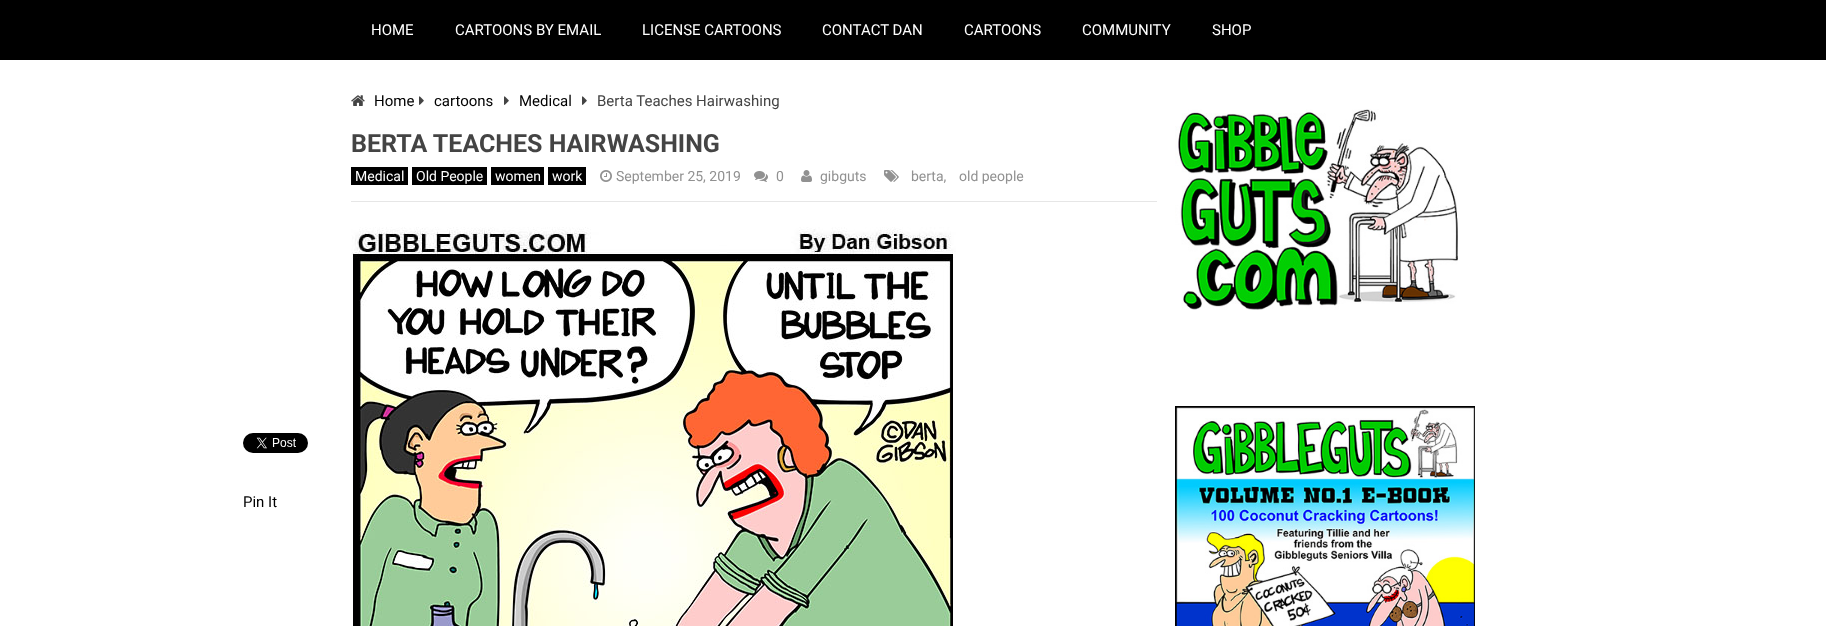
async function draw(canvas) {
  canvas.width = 1826
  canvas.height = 626
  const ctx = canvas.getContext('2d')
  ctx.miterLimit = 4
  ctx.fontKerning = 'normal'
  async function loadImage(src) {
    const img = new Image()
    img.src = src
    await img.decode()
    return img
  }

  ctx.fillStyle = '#fff'
  ctx.fillRect(0, 0, 1826, 626)
  ctx.fillStyle = '#000'
  ctx.fillRect(0, 0, 1826, 60)
  ctx.font = '15px Roboto'
  ctx.fillStyle = '#fff'
  ctx.fillText('HOME', 371, 35)
  ctx.fillText('CARTOONS BY EMAIL', 455, 35)
  ctx.fillText('LICENSE CARTOONS', 642, 35)
  ctx.fillText('CONTACT DAN', 822, 35)
  ctx.fillText('CARTOONS', 964, 35)
  ctx.fillText('COMMUNITY', 1082, 35)
  ctx.fillText('SHOP', 1212, 35)
  ctx.drawImage(await loadImage('image0.png'), 351, 95, 14, 11)
  ctx.fillStyle = '#000'
  ctx.fillText('Home', 374, 106)
  ctx.drawImage(await loadImage('image1.png'), 419, 96, 5, 9)
  ctx.fillText('cartoons', 434, 106)
  ctx.drawImage(await loadImage('image1.png'), 504, 96, 5, 9)
  ctx.fillText('Medical', 519, 106)
  ctx.drawImage(await loadImage('image1.png'), 582, 96, 5, 9)
  ctx.fillStyle = '#444'
  ctx.fillText('Berta Teaches Hairwashing', 597, 106)
  ctx.fillStyle = '#e6e6e6'
  ctx.fillRect(351, 201, 806, 1)
  ctx.font = 'bold 25px Roboto'
  ctx.fillStyle = '#444'
  ctx.fillText('BERTA TEACHES HAIRWASHING', 351, 152)
  ctx.fillStyle = '#000'
  ctx.fillRect(351, 167, 57, 18)
  ctx.font = '14px Roboto'
  ctx.fillStyle = '#fff'
  ctx.fillText('Medical', 355, 181)
  ctx.fillStyle = '#000'
  ctx.fillRect(412, 167, 75, 18)
  ctx.fillStyle = '#fff'
  ctx.fillText('Old People', 416, 181)
  ctx.fillStyle = '#000'
  ctx.fillRect(491, 167, 53, 18)
  ctx.fillStyle = '#fff'
  ctx.fillText('women', 495, 181)
  ctx.fillStyle = '#000'
  ctx.fillRect(548, 167, 38, 18)
  ctx.fillStyle = '#fff'
  ctx.fillText('work', 552, 181)
  ctx.drawImage(await loadImage('image2.png'), 600, 170, 12, 12)
  ctx.fillStyle = '#919191'
  ctx.fillText('September 25, 2019', 616, 181)
  ctx.drawImage(await loadImage('image3.png'), 754, 171, 14, 11)
  ctx.fillText('0', 776, 181)
  ctx.drawImage(await loadImage('image4.png'), 801, 170, 11, 12)
  ctx.fillText('gibguts', 820, 181)
  ctx.drawImage(await loadImage('image5.png'), 884, 170, 15, 12)
  ctx.fillText('berta,', 911, 181)
  ctx.fillText('old people', 959, 181)
  ctx.drawImage(await loadImage('image6.png'), 243, 433, 65, 20)
  ctx.font = '15px Roboto'
  ctx.fillStyle = '#000'
  ctx.fillText('Pin It', 243, 507)
  ctx.drawImage(await loadImage('image7.png'), 351, 227, 605, 399)
  ctx.drawImage(await loadImage('image8.png'), 1175, 109, 283, 201)
  ctx.drawImage(await loadImage('image9.png'), 1175, 406, 300, 220)
}

draw(document.querySelector('canvas'))
